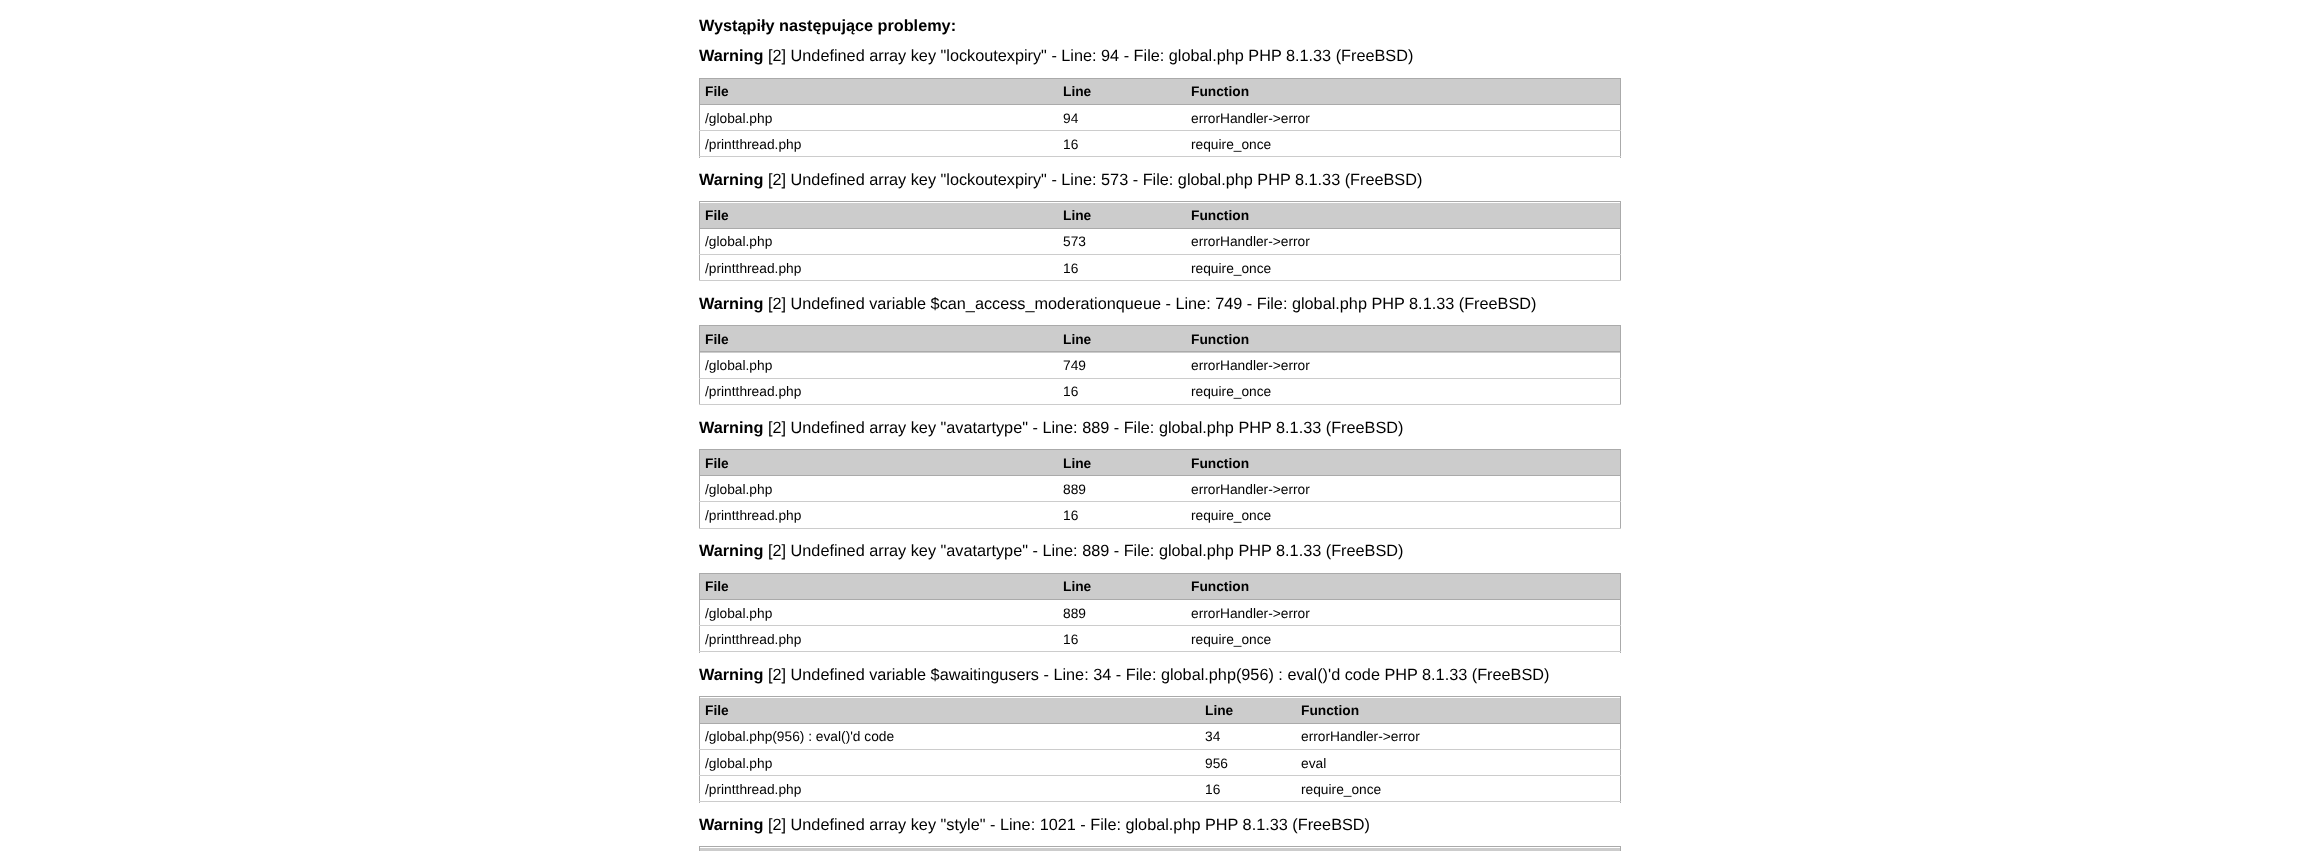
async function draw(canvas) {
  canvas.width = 2320
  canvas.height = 851
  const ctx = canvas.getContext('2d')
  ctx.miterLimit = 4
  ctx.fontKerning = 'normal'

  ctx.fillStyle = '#fff'
  ctx.fillRect(0, 0, 2320, 851)
  ctx.font = 'bold 16.25px Liberation Sans'
  ctx.fillStyle = '#000'
  ctx.fillText('Wystąpiły następujące problemy:', 699, 31)
  ctx.fillText('Warning', 699, 61)
  ctx.font = '16.25px Liberation Sans'
  ctx.fillText('[2] Undefined array key "lockoutexpiry" - Line: 94 - File: global.php PHP 8.1.33 (FreeBSD)', 768, 61)
  ctx.fillStyle = '#aaa'
  ctx.fillRect(699, 78, 922, 1)
  ctx.fillRect(1620, 78, 1, 80)
  ctx.fillRect(699, 78, 1, 80)
  ctx.fillStyle = '#ccc'
  ctx.fillRect(700, 79, 920, 25)
  ctx.font = 'bold 13.75px Liberation Sans'
  ctx.fillStyle = '#000'
  ctx.fillText('File', 705, 96)
  ctx.fillText('Line', 1063, 96)
  ctx.fillStyle = '#aaa'
  ctx.fillRect(699, 104, 922, 1)
  ctx.fillStyle = '#000'
  ctx.fillText('Function', 1191, 96)
  ctx.font = '13.75px Liberation Sans'
  ctx.fillText('/global.php', 705, 123)
  ctx.fillText('94', 1063, 123)
  ctx.fillStyle = '#ccc'
  ctx.fillRect(699, 130, 922, 1)
  ctx.fillStyle = '#000'
  ctx.fillText('errorHandler->error', 1191, 123)
  ctx.fillText('/printthread.php', 705, 149)
  ctx.fillText('16', 1063, 149)
  ctx.fillStyle = '#ccc'
  ctx.fillRect(699, 156, 922, 1)
  ctx.fillStyle = '#000'
  ctx.fillText('require_once', 1191, 149)
  ctx.font = 'bold 16.25px Liberation Sans'
  ctx.fillText('Warning', 699, 185)
  ctx.font = '16.25px Liberation Sans'
  ctx.fillText('[2] Undefined array key "lockoutexpiry" - Line: 573 - File: global.php PHP 8.1.33 (FreeBSD)', 768, 185)
  ctx.fillStyle = '#aaa'
  ctx.fillRect(699, 201, 922, 1)
  ctx.fillRect(1620, 201, 1, 80)
  ctx.fillRect(699, 201, 1, 80)
  ctx.fillStyle = '#ccc'
  ctx.fillRect(700, 203, 920, 25)
  ctx.font = 'bold 13.75px Liberation Sans'
  ctx.fillStyle = '#000'
  ctx.fillText('File', 705, 220)
  ctx.fillText('Line', 1063, 220)
  ctx.fillStyle = '#aaa'
  ctx.fillRect(699, 228, 922, 1)
  ctx.fillStyle = '#000'
  ctx.fillText('Function', 1191, 220)
  ctx.font = '13.75px Liberation Sans'
  ctx.fillText('/global.php', 705, 246)
  ctx.fillText('573', 1063, 246)
  ctx.fillStyle = '#ccc'
  ctx.fillRect(699, 254, 922, 1)
  ctx.fillStyle = '#000'
  ctx.fillText('errorHandler->error', 1191, 246)
  ctx.fillText('/printthread.php', 705, 273)
  ctx.fillText('16', 1063, 273)
  ctx.fillStyle = '#ccc'
  ctx.fillRect(699, 280, 922, 1)
  ctx.fillStyle = '#000'
  ctx.fillText('require_once', 1191, 273)
  ctx.font = 'bold 16.25px Liberation Sans'
  ctx.fillText('Warning', 699, 309)
  ctx.font = '16.25px Liberation Sans'
  ctx.fillText('[2] Undefined variable $can_access_moderationqueue - Line: 749 - File: global.php PHP 8.1.33 (FreeBSD)', 768, 309)
  ctx.fillStyle = '#aaa'
  ctx.fillRect(699, 325, 922, 1)
  ctx.fillRect(1620, 325, 1, 80)
  ctx.fillRect(699, 325, 1, 80)
  ctx.fillStyle = '#ccc'
  ctx.fillRect(700, 326, 920, 27)
  ctx.font = 'bold 13.75px Liberation Sans'
  ctx.fillStyle = '#000'
  ctx.fillText('File', 705, 344)
  ctx.fillText('Line', 1063, 344)
  ctx.fillStyle = '#aaa'
  ctx.fillRect(699, 351, 922, 1)
  ctx.fillStyle = '#000'
  ctx.fillText('Function', 1191, 344)
  ctx.font = '13.75px Liberation Sans'
  ctx.fillText('/global.php', 705, 370)
  ctx.fillText('749', 1063, 370)
  ctx.fillStyle = '#ccc'
  ctx.fillRect(699, 378, 922, 1)
  ctx.fillStyle = '#000'
  ctx.fillText('errorHandler->error', 1191, 370)
  ctx.fillText('/printthread.php', 705, 396)
  ctx.fillText('16', 1063, 396)
  ctx.fillStyle = '#ccc'
  ctx.fillRect(699, 404, 922, 1)
  ctx.fillStyle = '#000'
  ctx.fillText('require_once', 1191, 396)
  ctx.font = 'bold 16.25px Liberation Sans'
  ctx.fillText('Warning', 699, 433)
  ctx.font = '16.25px Liberation Sans'
  ctx.fillText('[2] Undefined array key "avatartype" - Line: 889 - File: global.php PHP 8.1.33 (FreeBSD)', 768, 433)
  ctx.fillStyle = '#aaa'
  ctx.fillRect(699, 449, 922, 1)
  ctx.fillRect(1620, 449, 1, 80)
  ctx.fillRect(699, 449, 1, 80)
  ctx.fillStyle = '#ccc'
  ctx.fillRect(700, 450, 920, 25)
  ctx.font = 'bold 13.75px Liberation Sans'
  ctx.fillStyle = '#000'
  ctx.fillText('File', 705, 468)
  ctx.fillText('Line', 1063, 468)
  ctx.fillStyle = '#aaa'
  ctx.fillRect(699, 475, 922, 1)
  ctx.fillStyle = '#000'
  ctx.fillText('Function', 1191, 468)
  ctx.font = '13.75px Liberation Sans'
  ctx.fillText('/global.php', 705, 494)
  ctx.fillText('889', 1063, 494)
  ctx.fillStyle = '#ccc'
  ctx.fillRect(699, 501, 922, 1)
  ctx.fillStyle = '#000'
  ctx.fillText('errorHandler->error', 1191, 494)
  ctx.fillText('/printthread.php', 705, 520)
  ctx.fillText('16', 1063, 520)
  ctx.fillStyle = '#ccc'
  ctx.fillRect(699, 528, 922, 1)
  ctx.fillStyle = '#000'
  ctx.fillText('require_once', 1191, 520)
  ctx.font = 'bold 16.25px Liberation Sans'
  ctx.fillText('Warning', 699, 556)
  ctx.font = '16.25px Liberation Sans'
  ctx.fillText('[2] Undefined array key "avatartype" - Line: 889 - File: global.php PHP 8.1.33 (FreeBSD)', 768, 556)
  ctx.fillStyle = '#aaa'
  ctx.fillRect(699, 573, 922, 1)
  ctx.fillRect(1620, 573, 1, 80)
  ctx.fillRect(699, 573, 1, 80)
  ctx.fillStyle = '#ccc'
  ctx.fillRect(700, 574, 920, 25)
  ctx.font = 'bold 13.75px Liberation Sans'
  ctx.fillStyle = '#000'
  ctx.fillText('File', 705, 591)
  ctx.fillText('Line', 1063, 591)
  ctx.fillStyle = '#aaa'
  ctx.fillRect(699, 599, 922, 1)
  ctx.fillStyle = '#000'
  ctx.fillText('Function', 1191, 591)
  ctx.font = '13.75px Liberation Sans'
  ctx.fillText('/global.php', 705, 618)
  ctx.fillText('889', 1063, 618)
  ctx.fillStyle = '#ccc'
  ctx.fillRect(699, 625, 922, 1)
  ctx.fillStyle = '#000'
  ctx.fillText('errorHandler->error', 1191, 618)
  ctx.fillText('/printthread.php', 705, 644)
  ctx.fillText('16', 1063, 644)
  ctx.fillStyle = '#ccc'
  ctx.fillRect(699, 651, 922, 1)
  ctx.fillStyle = '#000'
  ctx.fillText('require_once', 1191, 644)
  ctx.font = 'bold 16.25px Liberation Sans'
  ctx.fillText('Warning', 699, 680)
  ctx.font = '16.25px Liberation Sans'
  ctx.fillText('[2] Undefined variable $awaitingusers - Line: 34 - File: global.php(956) : eval()\'d code PHP 8.1.33 (FreeBSD)', 768, 680)
  ctx.fillStyle = '#aaa'
  ctx.fillRect(699, 696, 922, 1)
  ctx.fillRect(1620, 696, 1, 107)
  ctx.fillRect(699, 696, 1, 107)
  ctx.fillStyle = '#ccc'
  ctx.fillRect(700, 698, 920, 25)
  ctx.font = 'bold 13.75px Liberation Sans'
  ctx.fillStyle = '#000'
  ctx.fillText('File', 705, 715)
  ctx.fillText('Line', 1205, 715)
  ctx.fillStyle = '#aaa'
  ctx.fillRect(699, 723, 922, 1)
  ctx.fillStyle = '#000'
  ctx.fillText('Function', 1301, 715)
  ctx.font = '13.75px Liberation Sans'
  ctx.fillText('/global.php(956) : eval()\'d code', 705, 741)
  ctx.fillText('34', 1205, 741)
  ctx.fillStyle = '#ccc'
  ctx.fillRect(699, 749, 922, 1)
  ctx.fillStyle = '#000'
  ctx.fillText('errorHandler->error', 1301, 741)
  ctx.fillText('/global.php', 705, 768)
  ctx.fillText('956', 1205, 768)
  ctx.fillStyle = '#ccc'
  ctx.fillRect(699, 775, 922, 1)
  ctx.fillStyle = '#000'
  ctx.fillText('eval', 1301, 768)
  ctx.fillText('/printthread.php', 705, 794)
  ctx.fillText('16', 1205, 794)
  ctx.fillStyle = '#ccc'
  ctx.fillRect(699, 801, 922, 1)
  ctx.fillStyle = '#000'
  ctx.fillText('require_once', 1301, 794)
  ctx.font = 'bold 16.25px Liberation Sans'
  ctx.fillText('Warning', 699, 830)
  ctx.font = '16.25px Liberation Sans'
  ctx.fillText('[2] Undefined array key "style" - Line: 1021 - File: global.php PHP 8.1.33 (FreeBSD)', 768, 830)
  ctx.fillStyle = '#aaa'
  ctx.fillRect(699, 846, 922, 1)
  ctx.fillRect(1620, 846, 1, 5)
  ctx.fillRect(699, 846, 1, 5)
  ctx.fillStyle = '#ccc'
  ctx.fillRect(700, 848, 920, 3)
}

draw(document.querySelector('canvas'))
